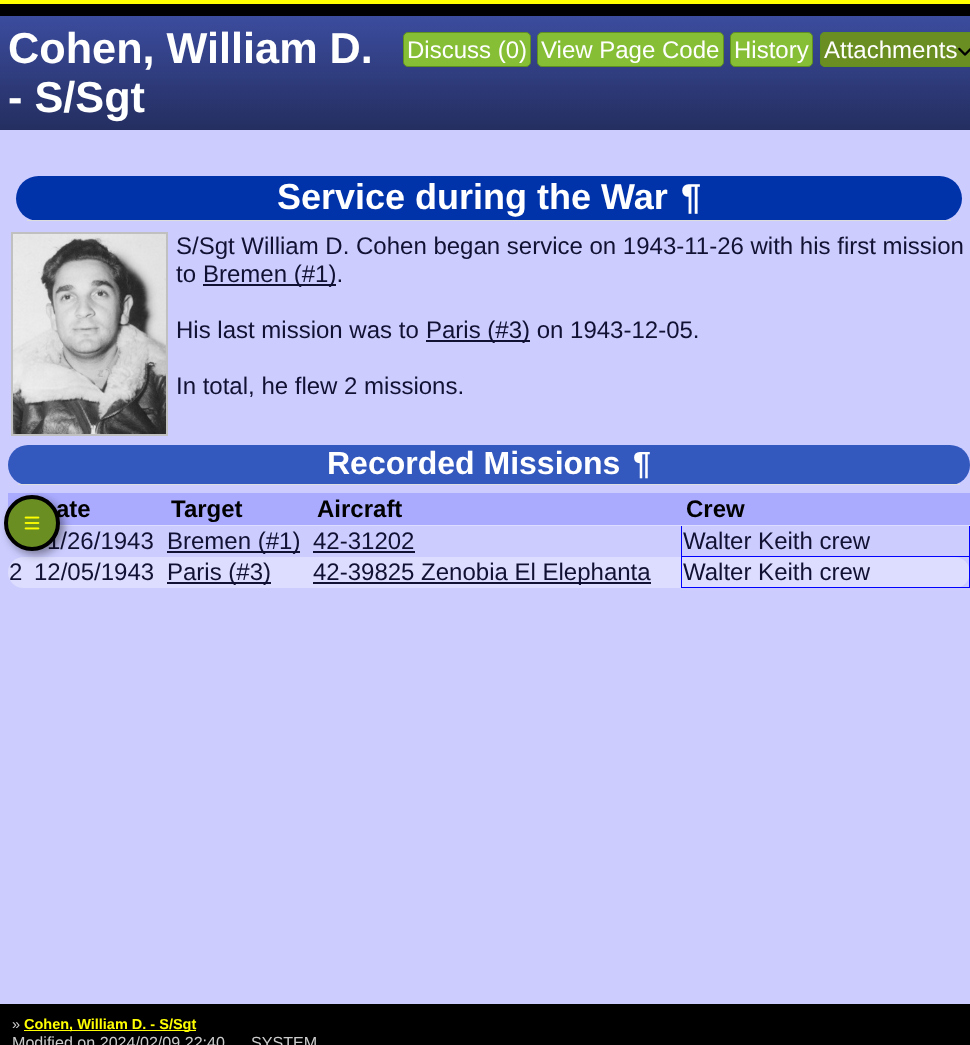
async function draw(canvas) {
  canvas.width = 970
  canvas.height = 1045
  const ctx = canvas.getContext('2d')
  ctx.miterLimit = 4
  ctx.fontKerning = 'normal'
  async function loadImage(src) {
    const img = new Image()
    img.src = src
    await img.decode()
    return img
  }
  let gradient

  ctx.fillStyle = '#ccf'
  ctx.fillRect(0, 0, 970, 1045)
  ctx.fillStyle = '#ff0'
  ctx.fillRect(0, 0, 970, 4)
  ctx.fillStyle = '#000'
  ctx.fillRect(0, 4, 970, 12)
  gradient = ctx.createLinearGradient(493, 16, 493, 130)
  gradient.addColorStop(0, '#3c4c9e')
  gradient.addColorStop(1, '#242e60')
  ctx.fillStyle = gradient
  ctx.fillRect(0, 16, 970, 114)
  ctx.font = 'bold 43.25px Liberation Sans'
  ctx.fillStyle = '#fff'
  ctx.fillText('Cohen, William D.', 8, 63)
  ctx.fillText('- S/Sgt', 8, 112)
  ctx.fillStyle = '#86be36'
  ctx.beginPath()
  ctx.roundRect(403.5, 32.5, 127, 34, 4.5)
  ctx.fill()
  ctx.strokeStyle = '#609020'
  ctx.stroke()
  ctx.font = '24px Liberation Sans'
  ctx.fillStyle = '#fff'
  ctx.fillText('Discuss (0)', 407, 58)
  ctx.fillStyle = '#86be36'
  ctx.beginPath()
  ctx.roundRect(537.5, 32.5, 186, 34, 4.5)
  ctx.fill()
  ctx.stroke()
  ctx.fillStyle = '#fff'
  ctx.fillText('View Page Code', 541, 58)
  ctx.fillStyle = '#86be36'
  ctx.beginPath()
  ctx.roundRect(730.5, 32.5, 82, 34, 4.5)
  ctx.fill()
  ctx.stroke()
  ctx.fillStyle = '#fff'
  ctx.fillText('History', 734, 58)
  ctx.fillStyle = '#6b8e23'
  ctx.beginPath()
  ctx.roundRect(820, 32, 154, 35, 5)
  ctx.fill()
  ctx.drawImage(await loadImage('image0.png'), 958, 47, 12, 9)
  ctx.beginPath()
  ctx.roundRect(820.5, 32.5, 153, 34, 4.5)
  ctx.stroke()
  ctx.fillStyle = '#fff'
  ctx.fillText('Attachments', 824, 58)
  ctx.fillStyle = '#03a'
  ctx.beginPath()
  ctx.roundRect(16, 176, 946, 45, 22.5)
  ctx.fill()
  ctx.fillStyle = '#ddd'
  ctx.fillRect(27, 220, 924, 1)
  ctx.font = 'bold 36px Liberation Sans'
  ctx.fillStyle = '#fff'
  ctx.fillText('Service during the War', 277, 209)
  ctx.fillText('¶', 681, 209)
  ctx.strokeStyle = '#c0c0c0'
  ctx.lineWidth = 2
  ctx.strokeRect(12, 233, 155, 202)
  ctx.drawImage(await loadImage('image1.png'), 13, 234, 153, 200)
  ctx.font = '24px Liberation Sans'
  ctx.fillStyle = '#113'
  ctx.fillText('S/Sgt William D. Cohen began service on 1943-11-26 with his first mission', 176, 254)
  ctx.fillText('to', 176, 282)
  ctx.fillRect(203, 284, 133, 2)
  ctx.fillText('Bremen (#1).', 203, 282)
  ctx.fillText('His last mission was to', 176, 338)
  ctx.fillRect(426, 340, 104, 2)
  ctx.fillText('Paris (#3) on 1943-12-05.', 426, 338)
  ctx.fillText('In total, he flew 2 missions.', 176, 394)
  ctx.fillStyle = '#3359bf'
  ctx.beginPath()
  ctx.roundRect(8, 445, 962, 40, 20)
  ctx.fill()
  ctx.fillStyle = '#ddd'
  ctx.fillRect(18, 484, 942, 1)
  ctx.font = 'bold 32px Liberation Sans'
  ctx.fillStyle = '#fff'
  ctx.fillText('Recorded Missions', 327, 474)
  ctx.fillText('¶', 633, 474)
  ctx.fillStyle = '#aaf'
  ctx.fillRect(8, 493, 25, 16)
  ctx.fillRect(33, 493, 937, 32)
  ctx.font = 'bold 24px Liberation Sans'
  ctx.fillStyle = '#000'
  ctx.fillText('ate', 56, 517)
  ctx.fillText('Target', 171, 517)
  ctx.fillText('Aircraft', 317, 517)
  ctx.fillStyle = '#ddf'
  ctx.beginPath()
  ctx.roundRect(8, 557, 962, 31, 15.5)
  ctx.fill()
  ctx.fillStyle = '#00f'
  ctx.fillRect(681, 556, 289, 1)
  ctx.fillRect(969, 525, 1, 63)
  ctx.fillRect(681, 587, 289, 1)
  ctx.fillRect(681, 525, 1, 63)
  ctx.fillStyle = '#ddf'
  ctx.fillRect(59, 525, 911, 1)
  ctx.fillStyle = '#000'
  ctx.fillText('Crew', 686, 517)
  ctx.font = '24px Liberation Sans'
  ctx.fillStyle = '#113'
  ctx.fillText('1/26/1943', 47, 549)
  ctx.fillRect(167, 551, 133, 2)
  ctx.fillText('Bremen (#1)', 167, 549)
  ctx.fillText('42-31202', 313, 549)
  ctx.fillRect(313, 551, 102, 2)
  ctx.fillText('Walter Keith crew', 683, 549)
  ctx.fillText('2', 9, 580)
  ctx.fillText('12/05/1943', 34, 580)
  ctx.fillRect(167, 582, 104, 2)
  ctx.fillText('Paris (#3)', 167, 580)
  ctx.fillRect(313, 582, 338, 2)
  ctx.fillText('42-39825 Zenobia El Elephanta', 313, 580)
  ctx.fillText('Walter Keith crew', 683, 580)
  ctx.fillStyle = '#000'
  ctx.fillRect(0, 1004, 970, 41)
  ctx.font = '14.5px Liberation Sans'
  ctx.fillStyle = '#ccc'
  ctx.fillText('»', 12, 1029)
  ctx.fillStyle = '#ff0'
  ctx.fillRect(24, 1030, 172, 1)
  ctx.font = 'bold 14.5px Liberation Sans'
  ctx.fillText('Cohen, William D. - S/Sgt', 24, 1029)
  ctx.font = '16.1px Liberation Sans'
  ctx.fillStyle = '#ccc'
  ctx.fillText('Modified on 2024/02/09 22:40', 12, 1048)
  ctx.fillText('SYSTEM', 251, 1048)
  ctx.fillStyle = '#00000066'
  ctx.filter = 'blur(4px)'
  ctx.beginPath()
  ctx.roundRect(8, 499, 56, 56, 28)
  ctx.fill()
  ctx.filter = 'none'
  ctx.fillStyle = '#6b8e23'
  ctx.beginPath()
  ctx.arc(32, 523, 26, 0, 2 * Math.PI)
  ctx.fill()
  ctx.strokeStyle = '#000'
  ctx.lineWidth = 4
  ctx.stroke()
  ctx.drawImage(await loadImage('image2.png'), 24, 516, 16, 14)
}

draw(document.querySelector('canvas'))
